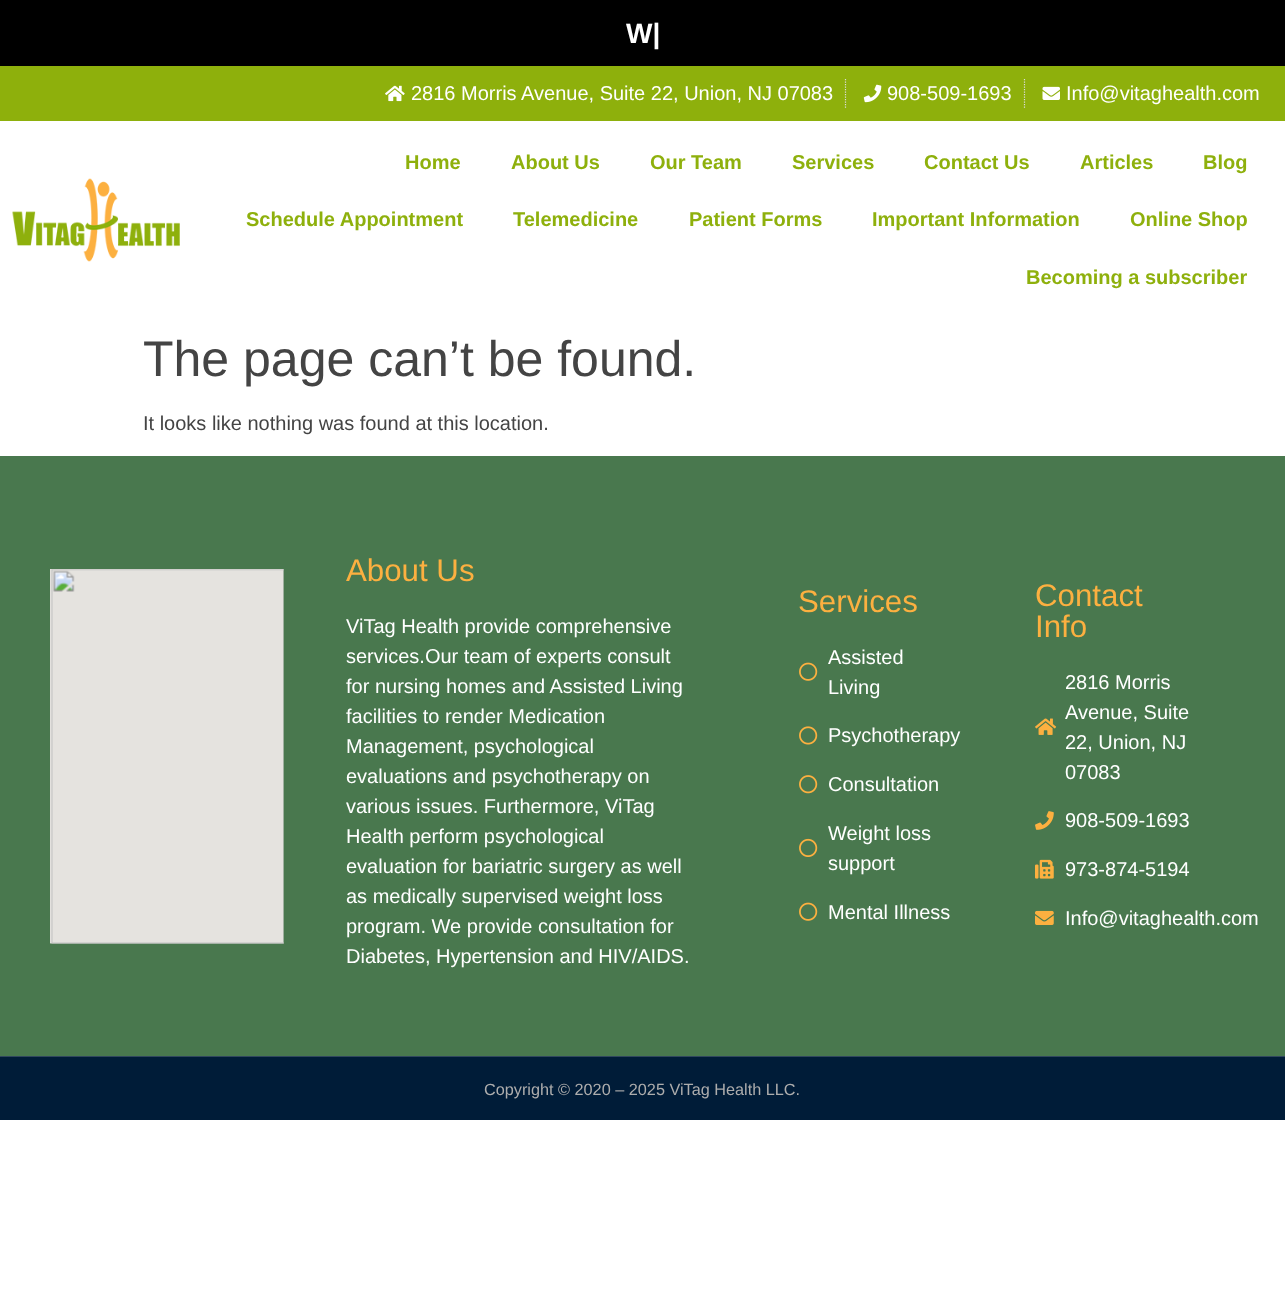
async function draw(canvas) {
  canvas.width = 1285
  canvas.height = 1304
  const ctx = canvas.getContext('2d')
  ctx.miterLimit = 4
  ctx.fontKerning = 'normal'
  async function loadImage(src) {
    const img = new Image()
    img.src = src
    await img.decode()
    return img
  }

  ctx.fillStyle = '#fff'
  ctx.fillRect(0, 0, 1285, 1304)
  ctx.fillStyle = '#000'
  ctx.fillRect(0, 0, 1285, 66)
  ctx.font = 'bold 28px Liberation Sans'
  ctx.fillStyle = '#fff'
  ctx.fillText('W|', 626, 43)
  ctx.fillStyle = '#8eb00c'
  ctx.fillRect(0, 66, 1285, 55)
  ctx.drawImage(await loadImage('image0.png'), 385, 85, 20, 17)
  ctx.font = '20px Liberation Sans'
  ctx.fillStyle = '#fff'
  ctx.fillText('2816 Morris Avenue, Suite 22, Union, NJ 07083', 411, 100)
  ctx.beginPath()
  ctx.moveTo(845.5, 79)
  ctx.lineTo(845.5, 109)
  ctx.strokeStyle = '#ddd'
  ctx.lineWidth = 1.2
  ctx.setLineDash([1.25, 1.25])
  ctx.stroke()
  ctx.drawImage(await loadImage('image1.png'), 863, 84, 19, 19)
  ctx.fillText('908-509-1693', 887, 100)
  ctx.beginPath()
  ctx.moveTo(1024.5, 79)
  ctx.lineTo(1024.5, 109)
  ctx.stroke()
  ctx.drawImage(await loadImage('image2.png'), 1042, 86, 18, 14)
  ctx.fillText('Info@vitaghealth.com', 1066, 100)
  ctx.drawImage(await loadImage('image3.png'), 12, 178, 168, 84)
  ctx.font = 'bold 20px Liberation Sans'
  ctx.fillStyle = '#8eb00c'
  ctx.fillText('Home', 405, 169)
  ctx.fillText('About Us', 511, 169)
  ctx.fillText('Our Team', 650, 169)
  ctx.fillText('Services', 792, 169)
  ctx.fillText('Contact Us', 924, 169)
  ctx.fillText('Articles', 1080, 169)
  ctx.fillText('Blog', 1203, 169)
  ctx.fillText('Schedule Appointment', 246, 226)
  ctx.fillText('Telemedicine', 513, 226)
  ctx.fillText('Patient Forms', 689, 226)
  ctx.fillText('Important Information', 872, 226)
  ctx.fillText('Online Shop', 1130, 226)
  ctx.fillText('Becoming a subscriber', 1026, 284)
  ctx.font = '50px Liberation Sans'
  ctx.fillStyle = '#444'
  ctx.fillText('The page can’t be found.', 143, 376)
  ctx.font = '20px Liberation Sans'
  ctx.fillText('It looks like nothing was found at this location.', 143, 430)
  ctx.fillStyle = '#49784e'
  ctx.fillRect(0, 456, 1285, 600)
  ctx.drawImage(await loadImage('image4.png'), 50, 569, 234, 375)
  ctx.font = '31.25px Liberation Sans'
  ctx.fillStyle = '#fcb040'
  ctx.fillText('About Us', 346, 581)
  ctx.font = '20px Liberation Sans'
  ctx.fillStyle = '#fff'
  ctx.fillText('ViTag Health provide comprehensive', 346, 633)
  ctx.fillText('services.Our team of experts consult', 346, 663)
  ctx.fillText('for nursing homes and Assisted Living', 346, 693)
  ctx.fillText('facilities to render Medication', 346, 723)
  ctx.fillText('Management, psychological', 346, 753)
  ctx.fillText('evaluations and psychotherapy on', 346, 783)
  ctx.fillText('various issues. Furthermore, ViTag', 346, 813)
  ctx.fillText('Health perform psychological', 346, 843)
  ctx.fillText('evaluation for bariatric surgery as well', 346, 873)
  ctx.fillText('as medically supervised weight loss', 346, 903)
  ctx.fillText('program. We provide consultation for', 346, 933)
  ctx.fillText('Diabetes, Hypertension and HIV/AIDS.', 346, 963)
  ctx.font = '31.25px Liberation Sans'
  ctx.fillStyle = '#fcb040'
  ctx.fillText('Services', 798, 612)
  ctx.drawImage(await loadImage('image5.png'), 799, 662, 19, 19)
  ctx.font = '20px Liberation Sans'
  ctx.fillStyle = '#fff'
  ctx.fillText('Assisted', 828, 664)
  ctx.fillText('Living', 828, 694)
  ctx.drawImage(await loadImage('image6.png'), 799, 726, 19, 19)
  ctx.fillText('Psychotherapy', 828, 742)
  ctx.drawImage(await loadImage('image7.png'), 799, 775, 19, 19)
  ctx.fillText('Consultation', 828, 791)
  ctx.drawImage(await loadImage('image8.png'), 799, 838, 19, 19)
  ctx.fillText('Weight loss', 828, 840)
  ctx.fillText('support', 828, 870)
  ctx.drawImage(await loadImage('image5.png'), 799, 902, 19, 19)
  ctx.fillText('Mental Illness', 828, 919)
  ctx.font = '31.25px Liberation Sans'
  ctx.fillStyle = '#fcb040'
  ctx.fillText('Contact', 1035, 606)
  ctx.fillText('Info', 1035, 637)
  ctx.drawImage(await loadImage('image9.png'), 1035, 718, 22, 17)
  ctx.font = '20px Liberation Sans'
  ctx.fillStyle = '#fff'
  ctx.fillText('2816 Morris', 1065, 689)
  ctx.fillText('Avenue, Suite', 1065, 719)
  ctx.fillText('22, Union, NJ', 1065, 749)
  ctx.fillText('07083', 1065, 779)
  ctx.drawImage(await loadImage('image10.png'), 1035, 811, 19, 19)
  ctx.fillText('908-509-1693', 1065, 827)
  ctx.drawImage(await loadImage('image11.png'), 1035, 859, 19, 20)
  ctx.fillText('973-874-5194', 1065, 876)
  ctx.drawImage(await loadImage('image12.png'), 1035, 910, 19, 15)
  ctx.fillText('Info@vitaghealth.com', 1065, 925)
  ctx.fillStyle = '#001c38'
  ctx.fillRect(0, 1057, 1285, 63)
  ctx.fillStyle = '#30475e'
  ctx.fillRect(0, 1056, 1285, 1)
  ctx.font = '16.25px Liberation Sans'
  ctx.fillStyle = '#adadad'
  ctx.fillText('Copyright © 2020 – 2025 ViTag Health LLC.', 484, 1095)
}

draw(document.querySelector('canvas'))
